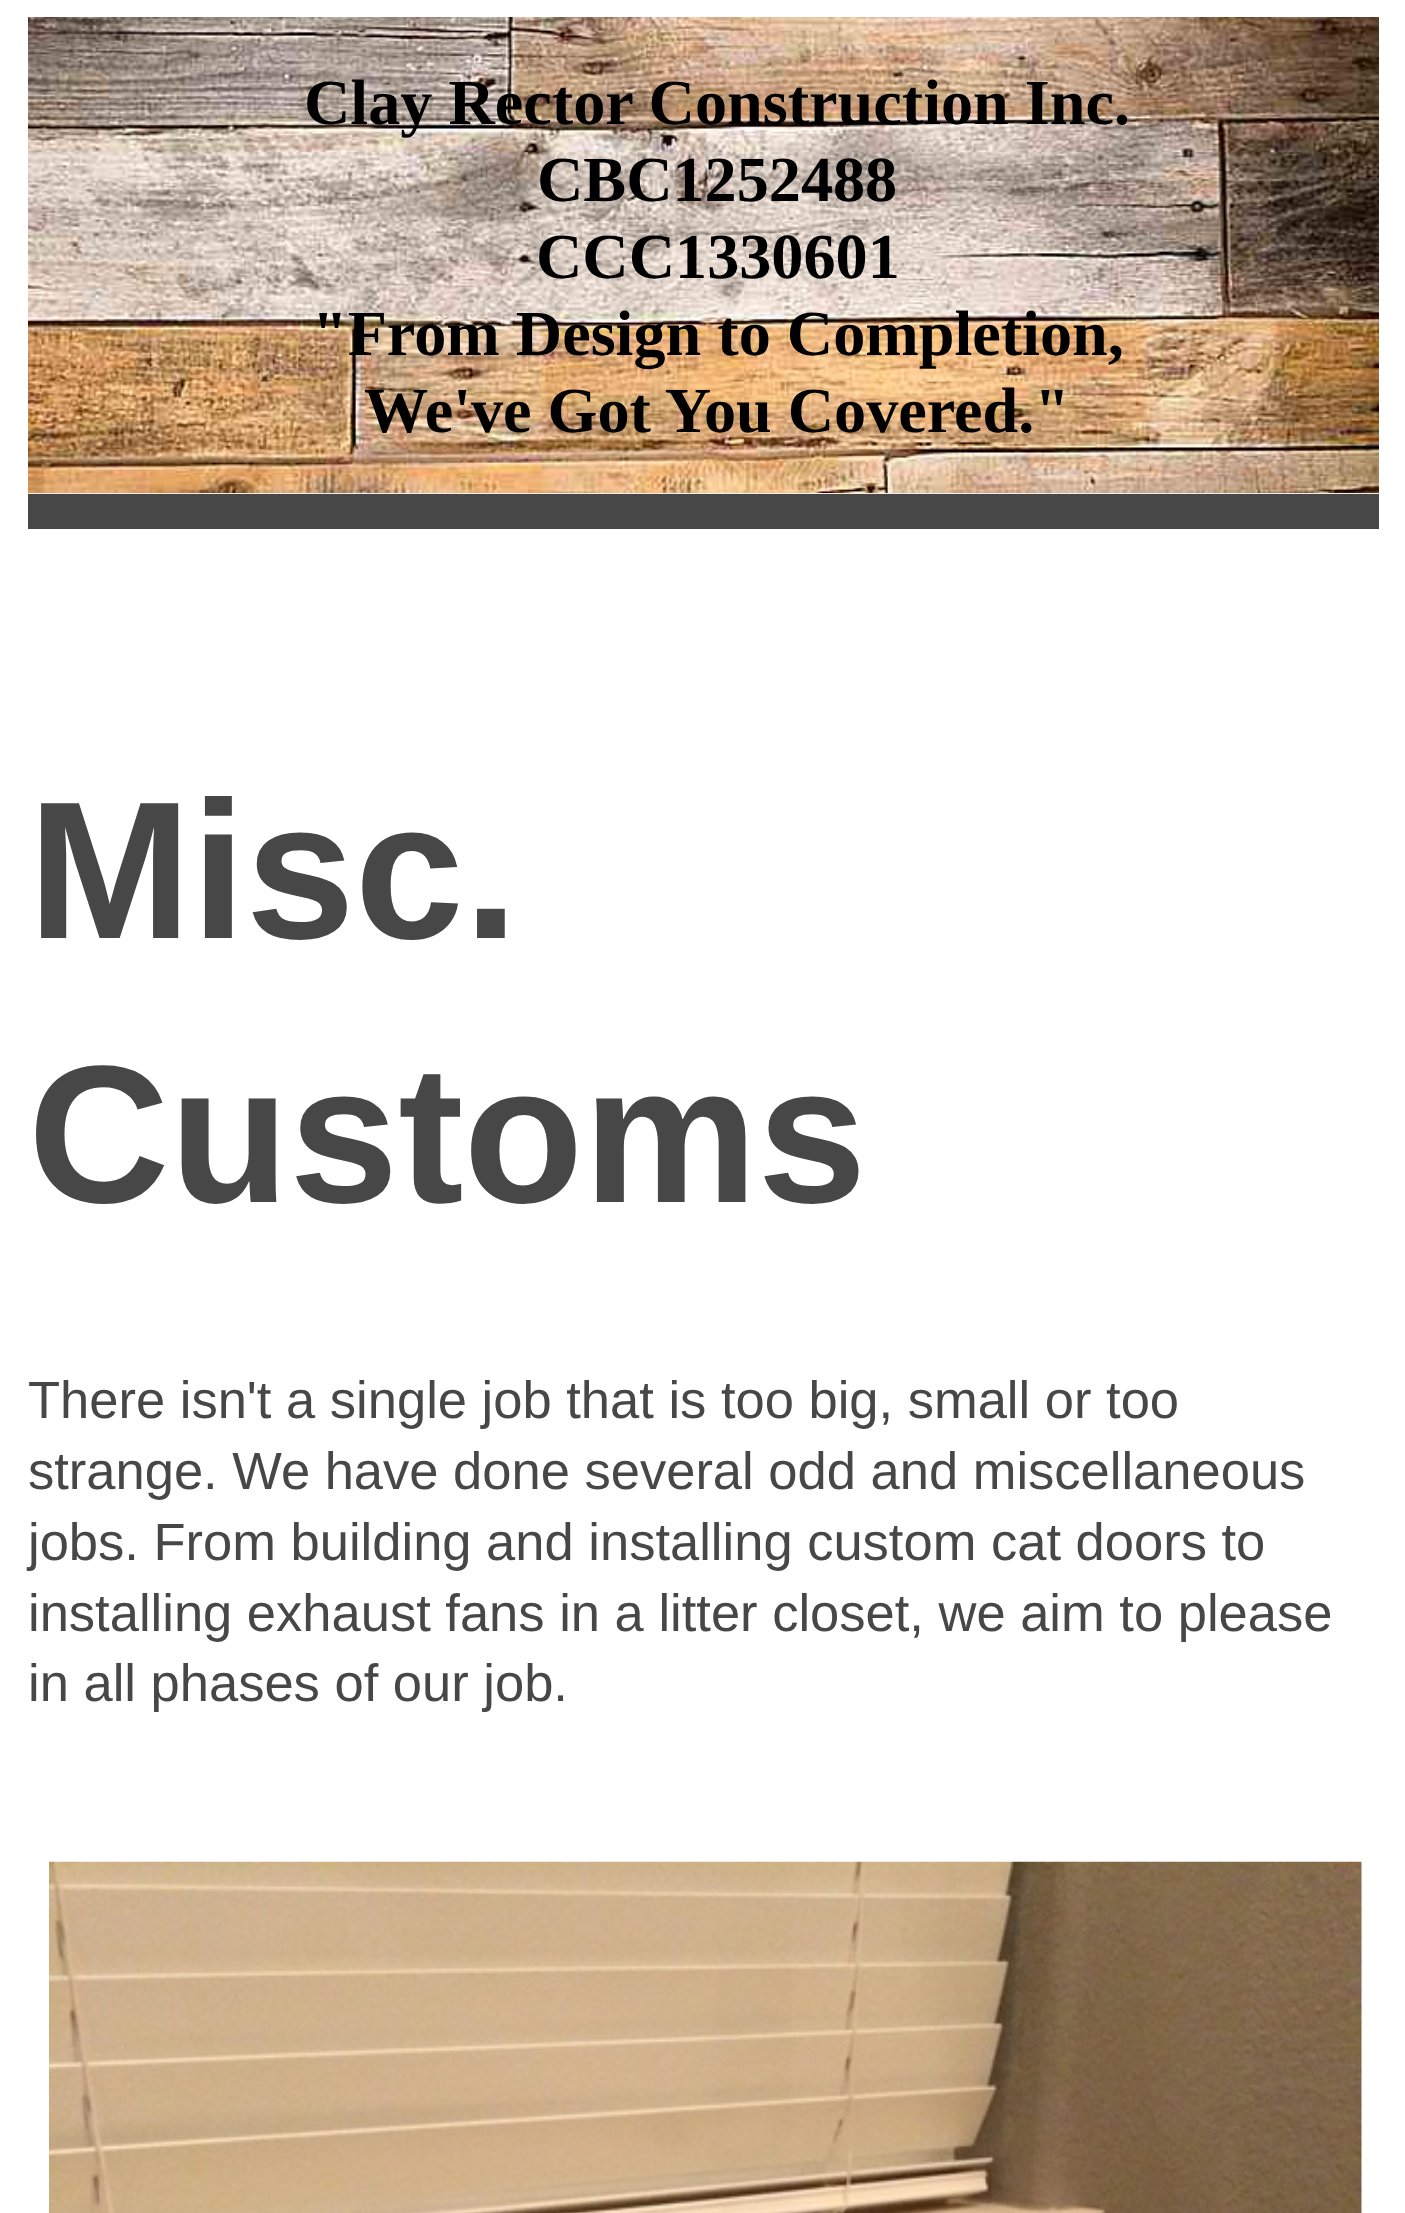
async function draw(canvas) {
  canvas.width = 1405
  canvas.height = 2213
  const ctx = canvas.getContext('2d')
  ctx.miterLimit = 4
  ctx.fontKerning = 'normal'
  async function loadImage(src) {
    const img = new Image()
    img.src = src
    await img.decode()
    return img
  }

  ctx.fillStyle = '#fff'
  ctx.fillRect(0, 0, 1405, 2213)
  ctx.fillStyle = '#474747'
  ctx.fillRect(28, 494, 1351, 35)
  ctx.fillStyle = '#eee'
  ctx.fillRect(28, 493, 1351, 1)
  ctx.drawImage(await loadImage('image0.png'), 28, 17, 1351, 476)
  ctx.font = 'bold 64.2px Liberation Serif'
  ctx.fillStyle = '#000'
  ctx.fillText('Clay Rector Construction Inc.', 304, 124)
  ctx.fillText('CBC1252488', 537, 201)
  ctx.fillText('CCC1330601', 536, 278)
  ctx.fillText('"From Design to Completion,', 312, 355)
  ctx.fillText('We\'ve Got You Covered."', 364, 432)
  ctx.font = 'bold 196px Liberation Sans'
  ctx.fillStyle = '#474747'
  ctx.fillText('Misc.', 28, 938)
  ctx.fillText('Customs', 28, 1202)
  ctx.font = '52.5px Liberation Sans'
  ctx.fillText('There isn\'t a single job that is too big, small or too', 28, 1418)
  ctx.fillText('strange. We have done several odd and miscellaneous', 28, 1489)
  ctx.fillText('jobs. From building and installing custom cat doors to', 28, 1560)
  ctx.fillText('installing exhaust fans in a litter closet, we aim to please', 28, 1631)
  ctx.fillText('in all phases of our job.', 28, 1701)
  ctx.drawImage(await loadImage('image1.png'), 49, 1861, 1313, 352)
}

draw(document.querySelector('canvas'))
